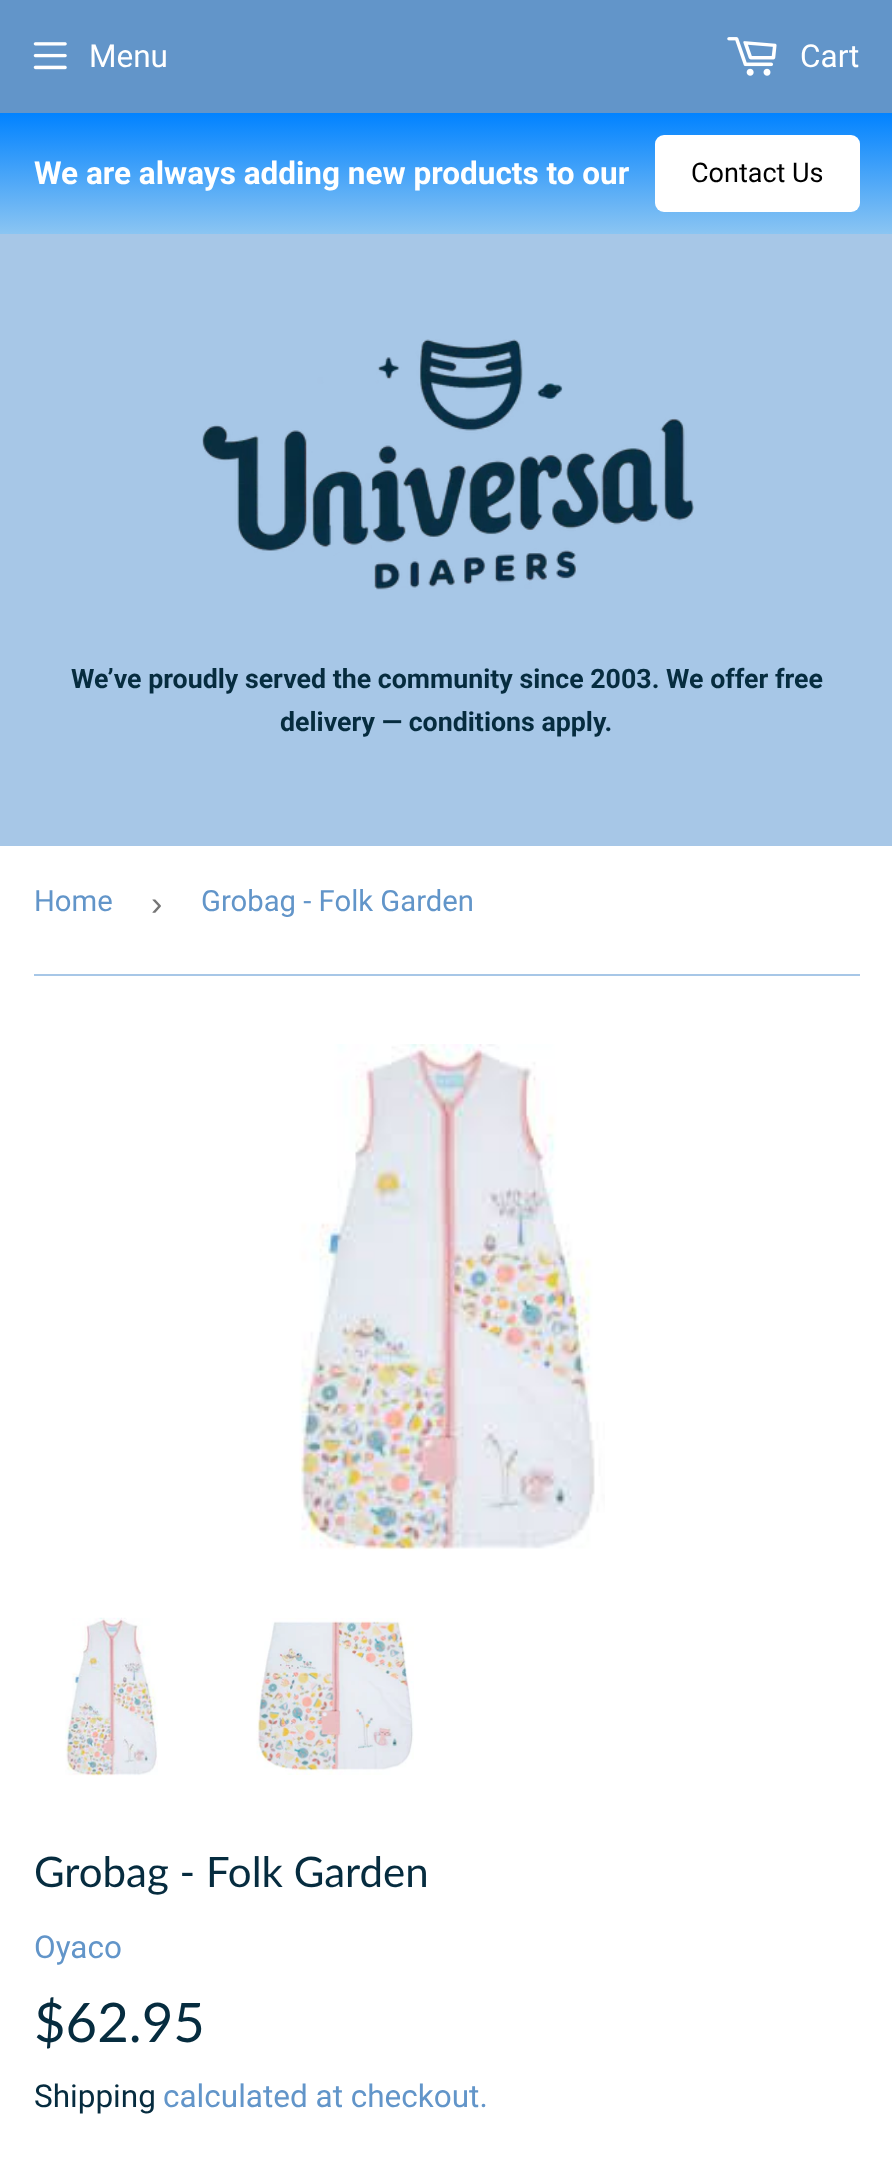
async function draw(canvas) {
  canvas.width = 892
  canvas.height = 2172
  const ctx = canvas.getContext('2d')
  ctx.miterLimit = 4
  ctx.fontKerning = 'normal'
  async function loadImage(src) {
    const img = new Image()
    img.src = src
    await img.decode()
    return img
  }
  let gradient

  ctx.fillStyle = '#fff'
  ctx.fillRect(0, 0, 892, 2172)
  ctx.fillStyle = '#6295c9'
  ctx.fillRect(0, 0, 892, 113)
  ctx.drawImage(await loadImage('image0.png'), 33, 42, 34, 28)
  ctx.font = '31.5px Roboto'
  ctx.fillStyle = '#fff'
  ctx.fillText('Menu', 89, 67)
  ctx.drawImage(await loadImage('image1.png'), 727, 37, 50, 39)
  ctx.fillText('Cart', 800, 67)
  ctx.fillStyle = '#a7c7e7'
  ctx.fillRect(0, 234, 892, 612)
  ctx.drawImage(await loadImage('image2.png'), 202, 339, 492, 251)
  ctx.font = 'bold 26.75px Roboto'
  ctx.fillStyle = '#062c3f'
  ctx.fillText('We’ve proudly served the community since 2003. We offer free', 71, 688)
  ctx.fillText('delivery — conditions apply.', 280, 731)
  gradient = ctx.createLinearGradient(447, 234, 447, 112)
  gradient.addColorStop(0, '#8bc5f2')
  gradient.addColorStop(1, '#0082ff')
  ctx.fillStyle = gradient
  ctx.fillRect(0, 113, 892, 121)
  ctx.font = 'bold 31.5px Roboto'
  ctx.fillStyle = '#fff'
  ctx.fillText('We are always adding new products to our', 34, 184)
  ctx.beginPath()
  ctx.roundRect(655, 135, 205, 77, 9)
  ctx.fill()
  ctx.font = '27px Roboto'
  ctx.fillStyle = '#000'
  ctx.fillText('Contact Us', 691, 182)
  ctx.fillStyle = '#a7c7e7'
  ctx.fillRect(34, 974, 826, 2)
  ctx.font = '29.25px Roboto'
  ctx.fillStyle = '#6295c9'
  ctx.fillText('Home', 34, 911)
  ctx.font = '34px Liberation Sans'
  ctx.fillStyle = '#767676'
  ctx.fillText('›', 151, 915)
  ctx.font = '29.25px Roboto'
  ctx.fillStyle = '#6295c9'
  ctx.fillText('Grobag - Folk Garden', 201, 911)
  ctx.drawImage(await loadImage('image3.png'), 299, 1044, 306, 507)
  ctx.drawImage(await loadImage('image4.png'), 65, 1617, 93, 159)
  ctx.drawImage(await loadImage('image5.png'), 256, 1618, 158, 157)
  ctx.font = '42px Lato'
  ctx.fillStyle = '#062c3f'
  ctx.fillText('Grobag - Folk Garden', 34, 1887)
  ctx.font = '31.5px Roboto'
  ctx.fillStyle = '#6295c9'
  ctx.fillText('Oyaco', 34, 1958)
  ctx.font = '54.5px Lato'
  ctx.fillStyle = '#062c3f'
  ctx.fillText('$62.95', 34, 2042)
  ctx.font = '31.5px Roboto'
  ctx.fillText('Shipping', 34, 2107)
  ctx.fillStyle = '#6295c9'
  ctx.fillText('calculated at checkout.', 163, 2107)
}

draw(document.querySelector('canvas'))
